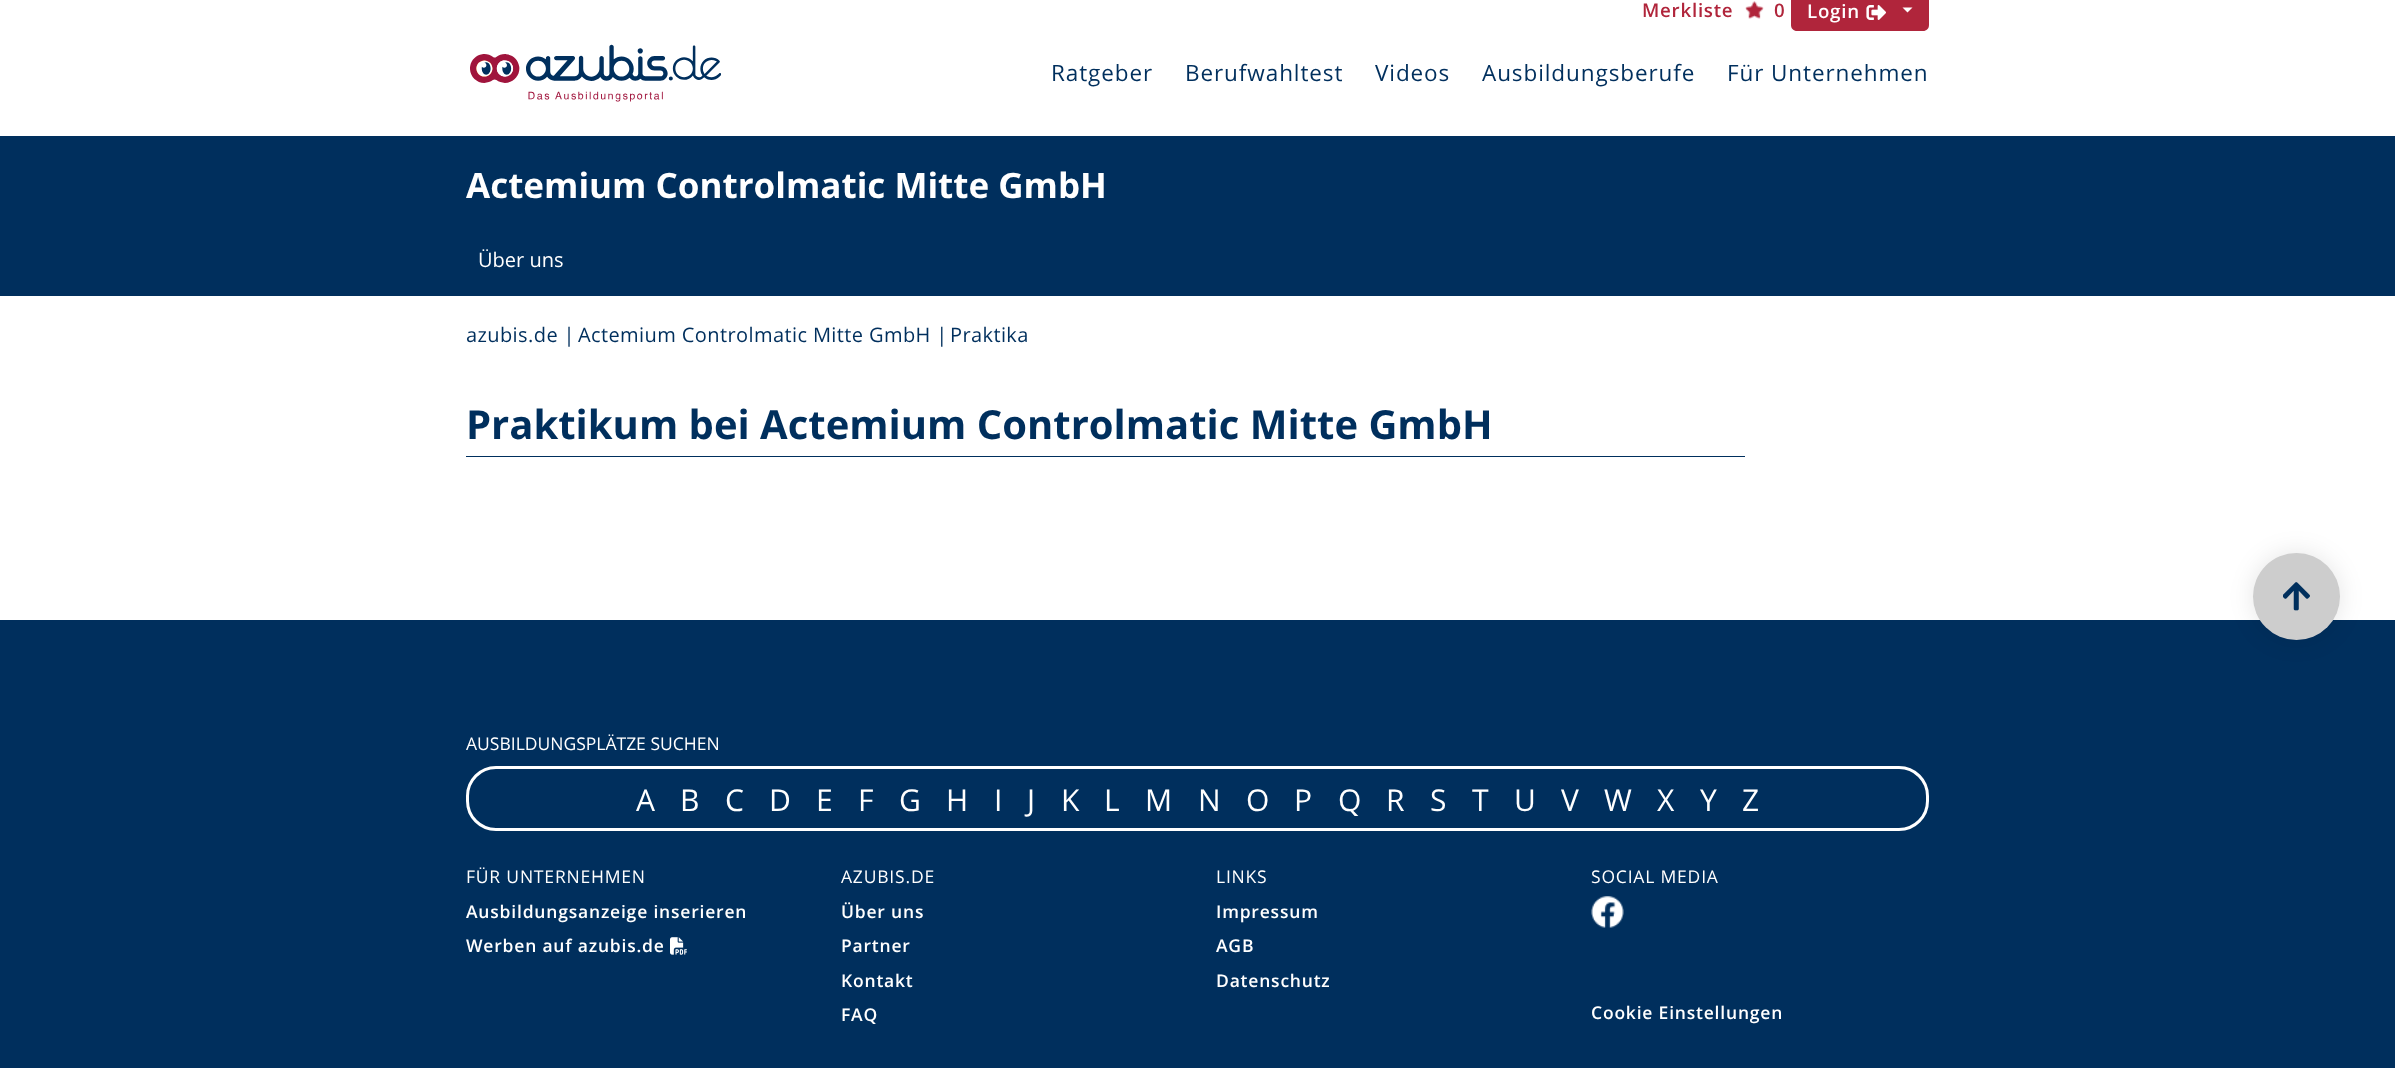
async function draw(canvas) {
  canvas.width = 2395
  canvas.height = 1068
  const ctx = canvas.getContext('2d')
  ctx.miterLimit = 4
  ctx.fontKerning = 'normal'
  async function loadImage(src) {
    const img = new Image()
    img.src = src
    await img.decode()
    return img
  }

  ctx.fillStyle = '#fff'
  ctx.fillRect(0, 0, 2395, 1068)
  ctx.drawImage(await loadImage('image0.png'), 470, 44, 251, 58)
  ctx.letterSpacing = '0.75px'
  ctx.font = '600 18.75px Open Sans'
  ctx.fillStyle = '#b0253b'
  ctx.fillText('Merkliste', 1642, 17)
  ctx.drawImage(await loadImage('image1.png'), 1745, 1, 19, 18)
  ctx.fillText('0', 1774, 17)
  ctx.beginPath()
  ctx.moveTo(1791, -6)
  ctx.lineTo(1929, -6)
  ctx.lineTo(1929, 25)
  ctx.bezierCurveTo(1929, 28.5, 1926.5, 31, 1923, 31)
  ctx.lineTo(1797, 31)
  ctx.bezierCurveTo(1793.5, 31, 1791, 28.5, 1791, 25)
  ctx.closePath()
  ctx.fill()
  ctx.fillStyle = '#fff'
  ctx.fillText('Login', 1807, 18)
  ctx.drawImage(await loadImage('image2.png'), 1866, 5, 20, 15)
  ctx.beginPath()
  ctx.moveTo(1902.5, 7.5)
  ctx.lineTo(1912.5, 7.5)
  ctx.lineTo(1907.5, 12.5)
  ctx.closePath()
  ctx.fill()
  ctx.letterSpacing = '0.9px'
  ctx.font = '22.5px Open Sans'
  ctx.fillStyle = '#002f5d'
  ctx.fillText('Ratgeber', 1051, 81)
  ctx.fillText('Berufwahltest', 1185, 81)
  ctx.fillText('Videos', 1375, 81)
  ctx.fillText('Ausbildungsberufe', 1482, 81)
  ctx.fillText('Für Unternehmen', 1727, 81)
  ctx.fillRect(0, 136, 2395, 160)
  ctx.letterSpacing = '0px'
  ctx.font = 'bold 35px Open Sans'
  ctx.fillStyle = '#fff'
  ctx.fillText('Actemium Controlmatic Mitte GmbH', 466, 198)
  ctx.font = '20px Open Sans'
  ctx.fillText('Über uns', 478, 267)
  ctx.letterSpacing = '0.4px'
  ctx.fillStyle = '#002f5d'
  ctx.fillText('azubis.de |', 466, 342)
  ctx.fillText('Actemium Controlmatic Mitte GmbH |', 578, 342)
  ctx.fillText('Praktika', 950, 342)
  ctx.fillRect(466, 456, 1279, 1)
  ctx.letterSpacing = '0px'
  ctx.font = 'bold 40px Open Sans'
  ctx.fillText('Praktikum bei Actemium Controlmatic Mitte GmbH', 466, 439)
  ctx.fillRect(0, 620, 2395, 448)
  ctx.fillStyle = '#0000001a'
  ctx.filter = 'blur(12.5px)'
  ctx.beginPath()
  ctx.roundRect(2253, 553, 87, 87, 43.5)
  ctx.fill()
  ctx.filter = 'none'
  ctx.fillStyle = '#cdcdcd'
  ctx.beginPath()
  ctx.arc(2296.5, 596.5, 43.5, 0, 2 * Math.PI)
  ctx.fill()
  ctx.drawImage(await loadImage('image3.png'), 2283, 582, 27, 29)
  ctx.font = '17.5px Open Sans'
  ctx.fillStyle = '#fff'
  ctx.fillText('AUSBILDUNGSPLÄTZE SUCHEN', 466, 750)
  ctx.beginPath()
  ctx.roundRect(467.5, 767.5, 1460, 62, 28.5)
  ctx.strokeStyle = '#fff'
  ctx.lineWidth = 3
  ctx.stroke()
  ctx.font = '30px Open Sans'
  ctx.fillText('A', 636, 811)
  ctx.fillText('B', 680, 811)
  ctx.fillText('C', 725, 811)
  ctx.fillText('D', 769, 811)
  ctx.fillText('E', 816, 811)
  ctx.fillText('F', 858, 811)
  ctx.fillText('G', 899, 811)
  ctx.fillText('H', 946, 811)
  ctx.fillText('I', 994, 811)
  ctx.fillText('J', 1027, 811)
  ctx.fillText('K', 1061, 811)
  ctx.fillText('L', 1104, 811)
  ctx.fillText('M', 1145, 811)
  ctx.fillText('N', 1198, 811)
  ctx.fillText('O', 1246, 811)
  ctx.fillText('P', 1294, 811)
  ctx.fillText('Q', 1338, 811)
  ctx.fillText('R', 1386, 811)
  ctx.fillText('S', 1430, 811)
  ctx.fillText('T', 1472, 811)
  ctx.fillText('U', 1514, 811)
  ctx.fillText('V', 1561, 811)
  ctx.fillText('W', 1604, 811)
  ctx.fillText('X', 1657, 811)
  ctx.fillText('Y', 1700, 811)
  ctx.fillText('Z', 1742, 811)
  ctx.letterSpacing = '0.8px'
  ctx.font = '17.5px Open Sans'
  ctx.fillText('FÜR UNTERNEHMEN', 466, 883)
  ctx.font = '600 17.5px Open Sans'
  ctx.fillText('Ausbildungsanzeige inserieren', 466, 918)
  ctx.fillText('Werben auf azubis.de', 466, 952)
  ctx.drawImage(await loadImage('image4.png'), 670, 937, 17, 18)
  ctx.font = '17.5px Open Sans'
  ctx.fillText('AZUBIS.DE', 841, 883)
  ctx.font = '600 17.5px Open Sans'
  ctx.fillText('Über uns', 841, 918)
  ctx.fillText('Partner', 841, 952)
  ctx.fillText('Kontakt', 841, 987)
  ctx.fillText('FAQ', 841, 1021)
  ctx.font = '17.5px Open Sans'
  ctx.fillText('LINKS', 1216, 883)
  ctx.font = '600 17.5px Open Sans'
  ctx.fillText('Impressum', 1216, 918)
  ctx.fillText('AGB', 1216, 952)
  ctx.fillText('Datenschutz', 1216, 987)
  ctx.font = '17.5px Open Sans'
  ctx.fillText('SOCIAL MEDIA', 1591, 883)
  ctx.drawImage(await loadImage('image5.png'), 1591, 896, 33, 32)
  ctx.font = '600 17.5px Open Sans'
  ctx.fillText('Cookie Einstellungen', 1591, 1019)
}

draw(document.querySelector('canvas'))
